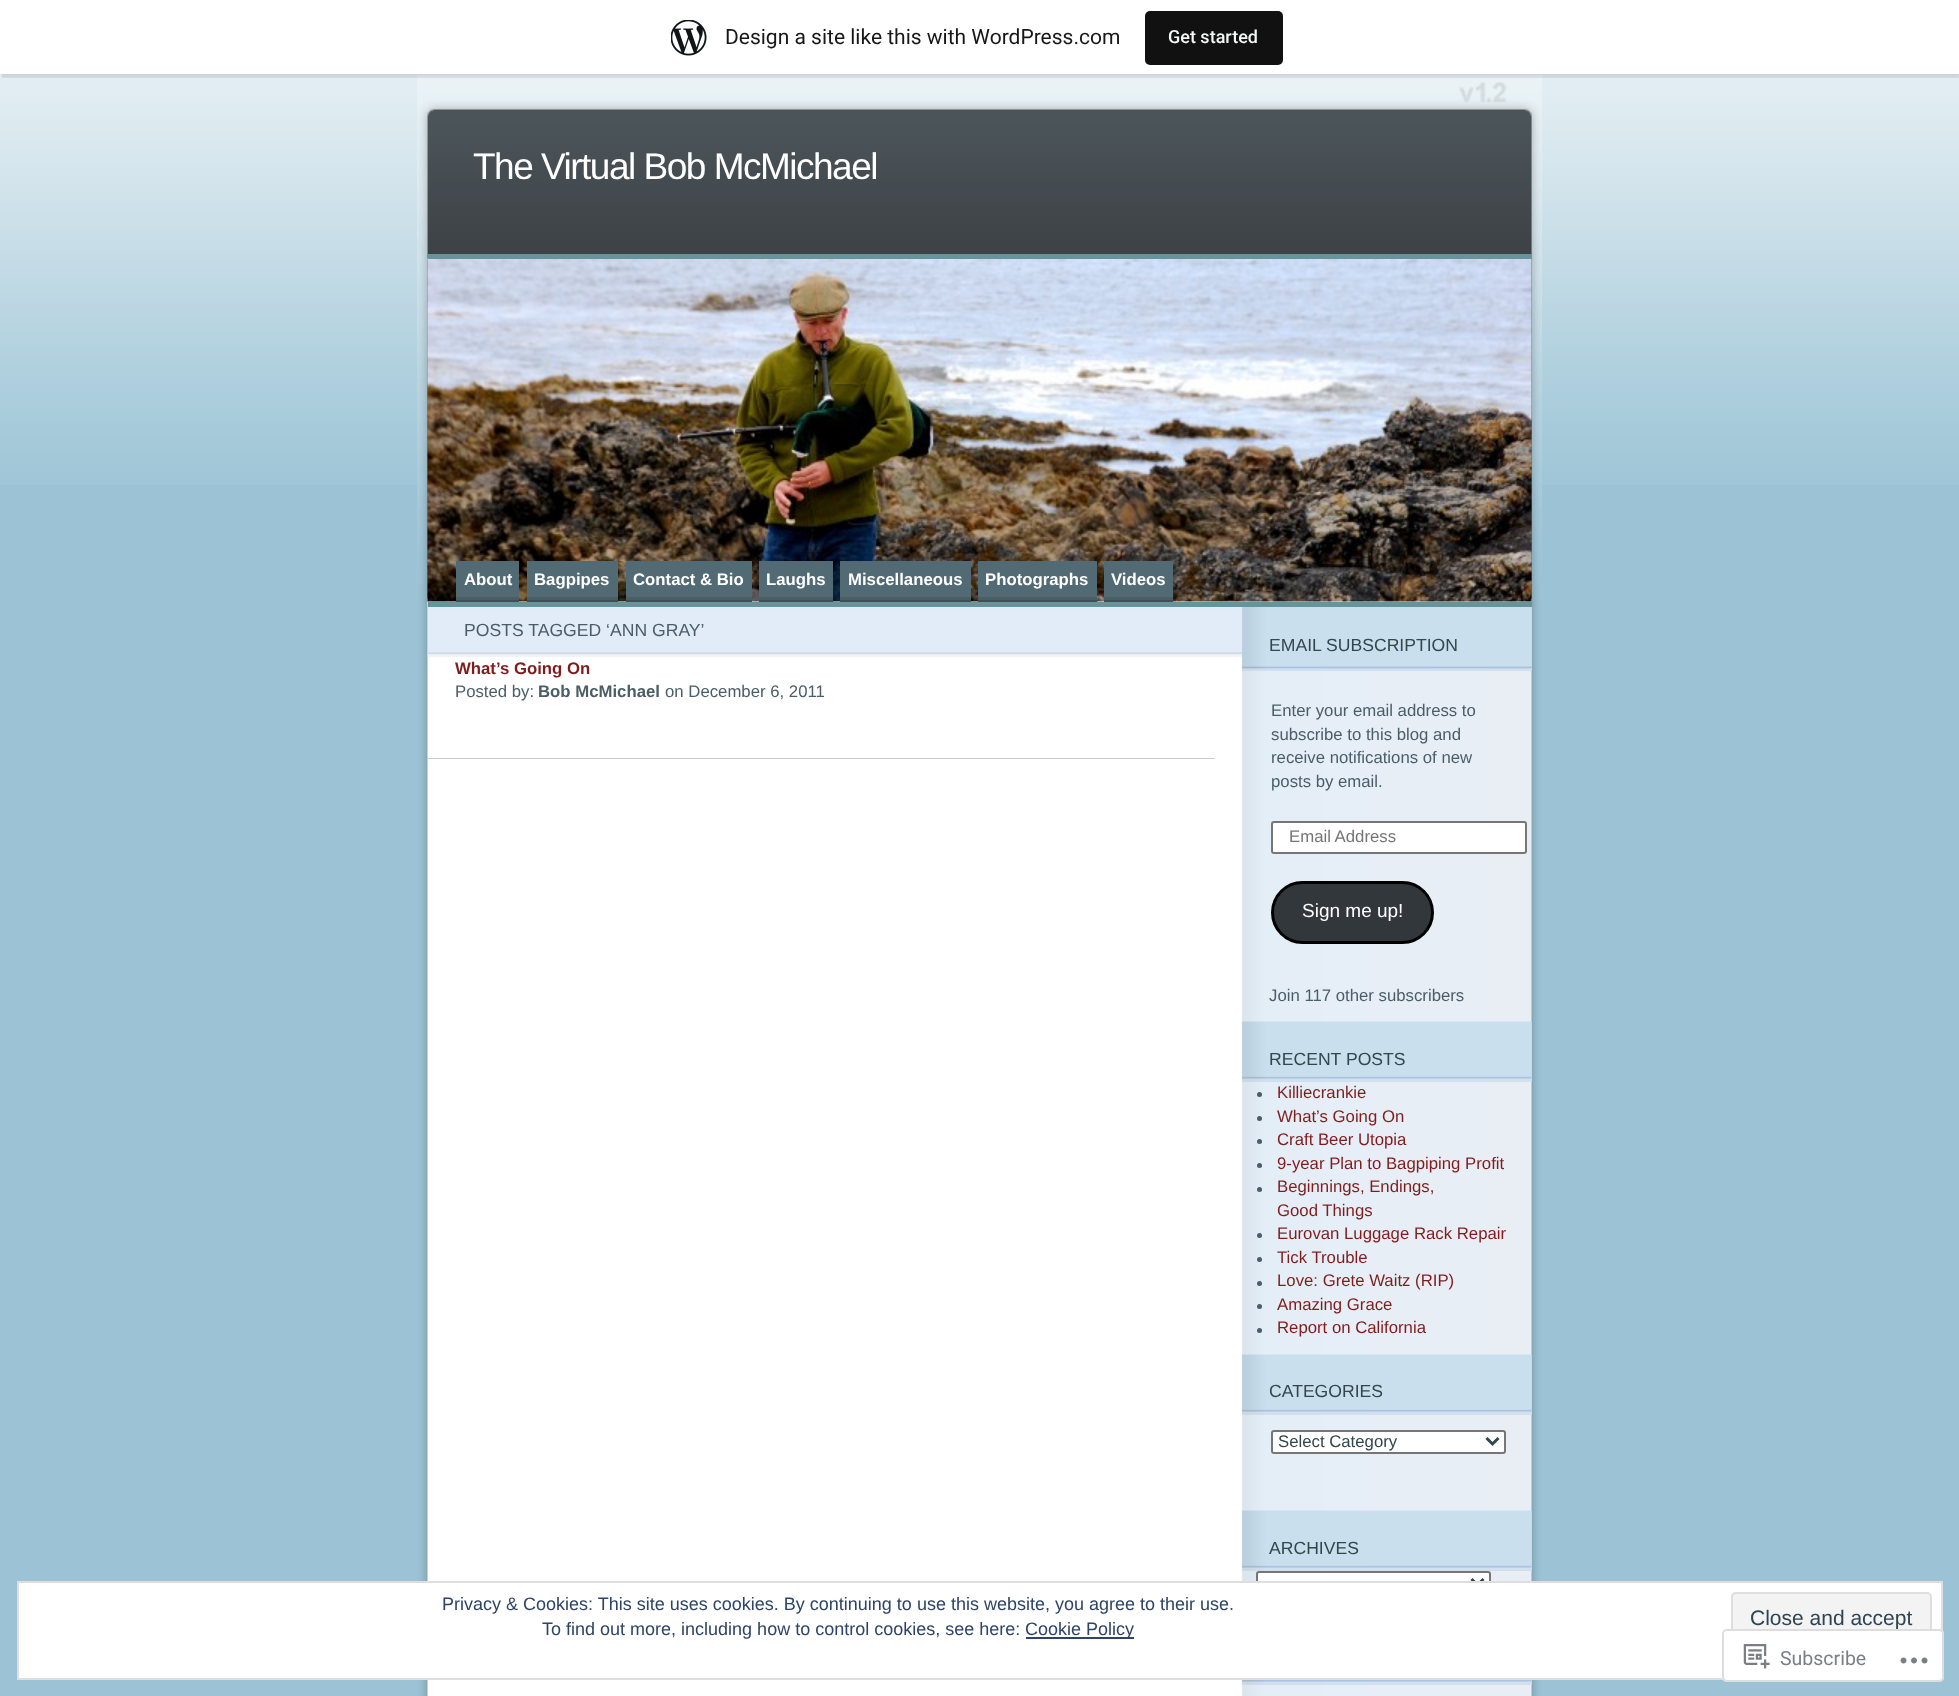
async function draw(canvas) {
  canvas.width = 1959
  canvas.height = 1696
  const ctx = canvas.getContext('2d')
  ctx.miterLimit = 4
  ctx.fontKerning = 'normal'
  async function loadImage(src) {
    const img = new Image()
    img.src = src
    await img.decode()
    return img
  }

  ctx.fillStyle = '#9bc3d5'
  ctx.fillRect(0, 0, 1959, 1696)
  ctx.drawImage(await loadImage('image0.png'), 0, 74, 1959, 411)
  ctx.drawImage(await loadImage('image2.png'), 417, 598, 1125, 1098)
  ctx.drawImage(await loadImage('image3.png'), 417, 74, 1125, 525)
  ctx.fillStyle = '#0000000d'
  ctx.filter = 'blur(1.5px)'
  ctx.beginPath()
  ctx.rect(0, 2, 1959, 73)
  ctx.fill()
  ctx.filter = 'none'
  ctx.fillStyle = '#00000014'
  ctx.beginPath()
  ctx.moveTo(2, 74)
  ctx.lineTo(2, 78)
  ctx.lineTo(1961, 78)
  ctx.lineTo(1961, 5)
  ctx.lineTo(1959, 5)
  ctx.lineTo(1959, 74)
  ctx.closePath()
  ctx.fill()
  ctx.fillStyle = '#fff'
  ctx.fillRect(0, 0, 1959, 74)
  ctx.drawImage(await loadImage('image1.png'), 671, 20, 36, 36)
  ctx.font = '21px Roboto'
  ctx.fillStyle = '#171717'
  ctx.fillText('Design a site like this with WordPress.com', 725, 44)
  ctx.fillStyle = '#111'
  ctx.beginPath()
  ctx.roundRect(1145, 11, 138, 54, 5)
  ctx.fill()
  ctx.font = '500 18px Roboto'
  ctx.fillStyle = '#f6f7f7'
  ctx.fillText('Get started', 1168, 43)
  ctx.letterSpacing = '-1.5px'
  ctx.font = '37px Liberation Sans'
  ctx.fillStyle = '#fff'
  ctx.fillText('The Virtual Bob McMichael', 473, 179)
  ctx.drawImage(await loadImage('image4.png'), 427, 258, 1105, 344)
  ctx.fillStyle = '#67939b'
  ctx.fillRect(428, 254, 1104, 5)
  ctx.fillRect(428, 602, 1104, 5)
  ctx.fillStyle = '#414e53'
  ctx.fillRect(456, 600, 63, 2)
  ctx.fillStyle = '#526a74'
  ctx.fillRect(456, 561, 63, 36)
  ctx.fillStyle = '#4a5e65'
  ctx.fillRect(456, 597, 63, 3)
  ctx.letterSpacing = '0px'
  ctx.font = 'bold 16.75px Liberation Sans'
  ctx.fillStyle = '#fff'
  ctx.fillText('About', 464, 585)
  ctx.fillStyle = '#414e53'
  ctx.fillRect(527, 600, 91, 2)
  ctx.fillStyle = '#526a74'
  ctx.fillRect(527, 561, 91, 36)
  ctx.fillStyle = '#4a5e65'
  ctx.fillRect(527, 597, 91, 3)
  ctx.fillStyle = '#fff'
  ctx.fillText('Bagpipes', 534, 585)
  ctx.fillStyle = '#414e53'
  ctx.fillRect(626, 600, 126, 2)
  ctx.fillStyle = '#526a74'
  ctx.fillRect(626, 561, 126, 36)
  ctx.fillStyle = '#4a5e65'
  ctx.fillRect(626, 597, 126, 3)
  ctx.fillStyle = '#fff'
  ctx.fillText('Contact & Bio', 633, 585)
  ctx.fillStyle = '#414e53'
  ctx.fillRect(759, 600, 74, 2)
  ctx.fillStyle = '#526a74'
  ctx.fillRect(759, 561, 74, 36)
  ctx.fillStyle = '#4a5e65'
  ctx.fillRect(759, 597, 74, 3)
  ctx.fillStyle = '#fff'
  ctx.fillText('Laughs', 766, 585)
  ctx.fillStyle = '#414e53'
  ctx.fillRect(840, 600, 131, 2)
  ctx.fillStyle = '#526a74'
  ctx.fillRect(840, 561, 131, 36)
  ctx.fillStyle = '#4a5e65'
  ctx.fillRect(840, 597, 131, 3)
  ctx.fillStyle = '#fff'
  ctx.fillText('Miscellaneous', 848, 585)
  ctx.fillStyle = '#414e53'
  ctx.fillRect(978, 600, 119, 2)
  ctx.fillStyle = '#526a74'
  ctx.fillRect(978, 561, 119, 36)
  ctx.fillStyle = '#4a5e65'
  ctx.fillRect(978, 597, 119, 3)
  ctx.fillStyle = '#fff'
  ctx.fillText('Photographs', 985, 585)
  ctx.fillStyle = '#414e53'
  ctx.fillRect(1104, 600, 69, 2)
  ctx.fillStyle = '#526a74'
  ctx.fillRect(1104, 561, 69, 36)
  ctx.fillStyle = '#4a5e65'
  ctx.fillRect(1104, 597, 69, 3)
  ctx.fillStyle = '#fff'
  ctx.fillText('Videos', 1111, 585)
  ctx.fillStyle = '#e2ebf8'
  ctx.fillRect(428, 607, 814, 46)
  ctx.drawImage(await loadImage('image5.png'), 427, 652, 815, 5)
  ctx.font = '17.6px Liberation Sans'
  ctx.fillStyle = '#4b5d67'
  ctx.fillText('POSTS TAGGED ‘ANN GRAY’', 464, 636)
  ctx.fillStyle = '#ccc'
  ctx.fillRect(428, 758, 787, 1)
  ctx.font = 'bold 16.75px Liberation Sans'
  ctx.fillStyle = '#7f1d1d'
  ctx.fillText('What’s Going On', 455, 674)
  ctx.font = '16.75px Liberation Sans'
  ctx.fillStyle = '#4b5d67'
  ctx.fillText('Posted by:', 455, 697)
  ctx.font = 'bold 16.75px Liberation Sans'
  ctx.fillText('Bob McMichael', 538, 697)
  ctx.font = '16.75px Liberation Sans'
  ctx.fillText('on December 6, 2011', 665, 697)
  ctx.fillStyle = '#cadfed'
  ctx.fillRect(1242, 607, 290, 64)
  ctx.drawImage(await loadImage('image6.png'), 1242, 607, 290, 64)
  ctx.font = '17.6px Liberation Sans'
  ctx.fillStyle = '#32474b'
  ctx.fillText('EMAIL SUBSCRIPTION', 1269, 651)
  ctx.font = '16.75px Liberation Sans'
  ctx.fillStyle = '#4b5d67'
  ctx.fillText('Enter your email address to', 1271, 716)
  ctx.fillText('subscribe to this blog and', 1271, 740)
  ctx.fillText('receive notifications of new', 1271, 763)
  ctx.fillText('posts by email.', 1271, 787)
  ctx.fillStyle = '#fff'
  ctx.beginPath()
  ctx.roundRect(1272, 822, 254, 31, 2)
  ctx.fill()
  ctx.strokeStyle = '#767676'
  ctx.lineWidth = 2
  ctx.stroke()
  ctx.fillStyle = '#757575'
  ctx.fillText('Email Address', 1289, 842)
  ctx.fillStyle = '#32373c'
  ctx.beginPath()
  ctx.roundRect(1272.5, 882.5, 160, 60, 30)
  ctx.fill()
  ctx.strokeStyle = '#000'
  ctx.lineWidth = 3
  ctx.stroke()
  ctx.font = '19px Liberation Sans'
  ctx.fillStyle = '#fff'
  ctx.fillText('Sign me up!', 1302, 917)
  ctx.font = '16.75px Liberation Sans'
  ctx.fillStyle = '#4b5d67'
  ctx.fillText('Join 117 other subscribers', 1269, 1001)
  ctx.fillStyle = '#cadfed'
  ctx.fillRect(1242, 1022, 290, 60)
  ctx.drawImage(await loadImage('image7.png'), 1242, 1021, 290, 61)
  ctx.font = '17.6px Liberation Sans'
  ctx.fillStyle = '#32474b'
  ctx.fillText('RECENT POSTS', 1269, 1065)
  ctx.fillStyle = '#4b5d67'
  ctx.beginPath()
  ctx.arc(1259.5, 1094.5, 2.5, 0, 2 * Math.PI)
  ctx.fill()
  ctx.font = '16.75px Liberation Sans'
  ctx.fillStyle = '#7f1d1d'
  ctx.fillText('Killiecrankie', 1277, 1098)
  ctx.fillStyle = '#4b5d67'
  ctx.beginPath()
  ctx.arc(1259.5, 1118.5, 2.5, 0, 2 * Math.PI)
  ctx.fill()
  ctx.fillStyle = '#7f1d1d'
  ctx.fillText('What’s Going On', 1277, 1122)
  ctx.fillStyle = '#4b5d67'
  ctx.beginPath()
  ctx.arc(1259.5, 1141.5, 2.5, 0, 2 * Math.PI)
  ctx.fill()
  ctx.fillStyle = '#7f1d1d'
  ctx.fillText('Craft Beer Utopia', 1277, 1145)
  ctx.fillStyle = '#4b5d67'
  ctx.beginPath()
  ctx.arc(1259.5, 1165.5, 2.5, 0, 2 * Math.PI)
  ctx.fill()
  ctx.fillStyle = '#7f1d1d'
  ctx.fillText('9-year Plan to Bagpiping Profit', 1277, 1169)
  ctx.fillStyle = '#4b5d67'
  ctx.beginPath()
  ctx.arc(1259.5, 1189.5, 2.5, 0, 2 * Math.PI)
  ctx.fill()
  ctx.fillStyle = '#7f1d1d'
  ctx.fillText('Beginnings, Endings,', 1277, 1192)
  ctx.fillText('Good Things', 1277, 1216)
  ctx.fillStyle = '#4b5d67'
  ctx.beginPath()
  ctx.arc(1259.5, 1235.5, 2.5, 0, 2 * Math.PI)
  ctx.fill()
  ctx.fillStyle = '#7f1d1d'
  ctx.fillText('Eurovan Luggage Rack Repair', 1277, 1239)
  ctx.fillStyle = '#4b5d67'
  ctx.beginPath()
  ctx.arc(1259.5, 1259.5, 2.5, 0, 2 * Math.PI)
  ctx.fill()
  ctx.fillStyle = '#7f1d1d'
  ctx.fillText('Tick Trouble', 1277, 1263)
  ctx.fillStyle = '#4b5d67'
  ctx.beginPath()
  ctx.arc(1259.5, 1283.5, 2.5, 0, 2 * Math.PI)
  ctx.fill()
  ctx.fillStyle = '#7f1d1d'
  ctx.fillText('Love: Grete Waitz (RIP)', 1277, 1286)
  ctx.fillStyle = '#4b5d67'
  ctx.beginPath()
  ctx.arc(1259.5, 1306.5, 2.5, 0, 2 * Math.PI)
  ctx.fill()
  ctx.fillStyle = '#7f1d1d'
  ctx.fillText('Amazing Grace', 1277, 1310)
  ctx.fillStyle = '#4b5d67'
  ctx.beginPath()
  ctx.arc(1259.5, 1330.5, 2.5, 0, 2 * Math.PI)
  ctx.fill()
  ctx.fillStyle = '#7f1d1d'
  ctx.fillText('Report on California', 1277, 1333)
  ctx.fillStyle = '#cadfed'
  ctx.fillRect(1242, 1355, 290, 60)
  ctx.drawImage(await loadImage('image7.png'), 1242, 1354, 290, 61)
  ctx.font = '17.6px Liberation Sans'
  ctx.fillStyle = '#32474b'
  ctx.fillText('CATEGORIES', 1269, 1397)
  ctx.fillStyle = '#fff'
  ctx.beginPath()
  ctx.roundRect(1272, 1431, 233, 22, 2)
  ctx.fill()
  ctx.strokeStyle = '#767676'
  ctx.lineWidth = 2
  ctx.stroke()
  ctx.beginPath()
  ctx.moveTo(1486.5, 1438)
  ctx.lineTo(1492.5, 1444)
  ctx.lineTo(1498.5, 1438)
  ctx.strokeStyle = '#32474b'
  ctx.lineWidth = 3
  ctx.stroke()
  ctx.font = '16.75px Liberation Sans'
  ctx.fillStyle = '#32474b'
  ctx.fillText('Select Category', 1278, 1447)
  ctx.fillStyle = '#cadfed'
  ctx.fillRect(1242, 1511, 290, 60)
  ctx.drawImage(await loadImage('image8.png'), 1242, 1510, 290, 61)
  ctx.font = '17.6px Liberation Sans'
  ctx.fillStyle = '#32474b'
  ctx.fillText('ARCHIVES', 1269, 1554)
  ctx.fillStyle = '#fff'
  ctx.beginPath()
  ctx.roundRect(1257, 1572, 233, 22, 2)
  ctx.fill()
  ctx.strokeStyle = '#767676'
  ctx.lineWidth = 2
  ctx.stroke()
  ctx.beginPath()
  ctx.moveTo(1471.5, 1579)
  ctx.lineTo(1477.5, 1585)
  ctx.lineTo(1483.5, 1579)
  ctx.strokeStyle = '#32474b'
  ctx.lineWidth = 3
  ctx.stroke()
  ctx.fillStyle = '#cadfed'
  ctx.fillRect(1242, 1680, 290, 5)
  ctx.drawImage(await loadImage('image9.png'), 1242, 1680, 290, 5)
  ctx.fillStyle = '#fff'
  ctx.beginPath()
  ctx.rect(18, 1582, 1924, 97)
  ctx.fill()
  ctx.strokeStyle = '#dedede'
  ctx.lineWidth = 2
  ctx.stroke()
  ctx.font = '18px Liberation Sans'
  ctx.fillStyle = '#2e4467'
  ctx.fillText('Privacy & Cookies: This site uses cookies. By continuing to use this website, you agree to their use.', 442, 1610)
  ctx.fillText('To find out more, including how to control cookies, see here:', 542, 1635)
  ctx.fillRect(1026, 1637, 108, 2)
  ctx.fillText('Cookie Policy', 1025, 1635)
  ctx.fillStyle = '#f3f3f3'
  ctx.beginPath()
  ctx.roundRect(1732, 1593, 199, 50, 4)
  ctx.fill()
  ctx.stroke()
  ctx.font = '21px Liberation Sans'
  ctx.fillStyle = '#2e4453'
  ctx.fillText('Close and accept', 1750, 1625)
  ctx.fillStyle = '#fffffffa'
  ctx.beginPath()
  ctx.roundRect(1722, 1629, 222, 53, 5)
  ctx.fill()
  ctx.beginPath()
  ctx.roundRect(1723, 1630, 220, 51, 4)
  ctx.strokeStyle = '#dcdcdefa'
  ctx.stroke()
  ctx.drawImage(await loadImage('image10.png'), 1743, 1644, 27, 25)
  ctx.font = '19.5px Roboto'
  ctx.fillStyle = '#7b7f85'
  ctx.fillText('Subscribe', 1780, 1665)
  ctx.drawImage(await loadImage('image11.png'), 1900, 1657, 28, 7)
}

draw(document.querySelector('canvas'))
